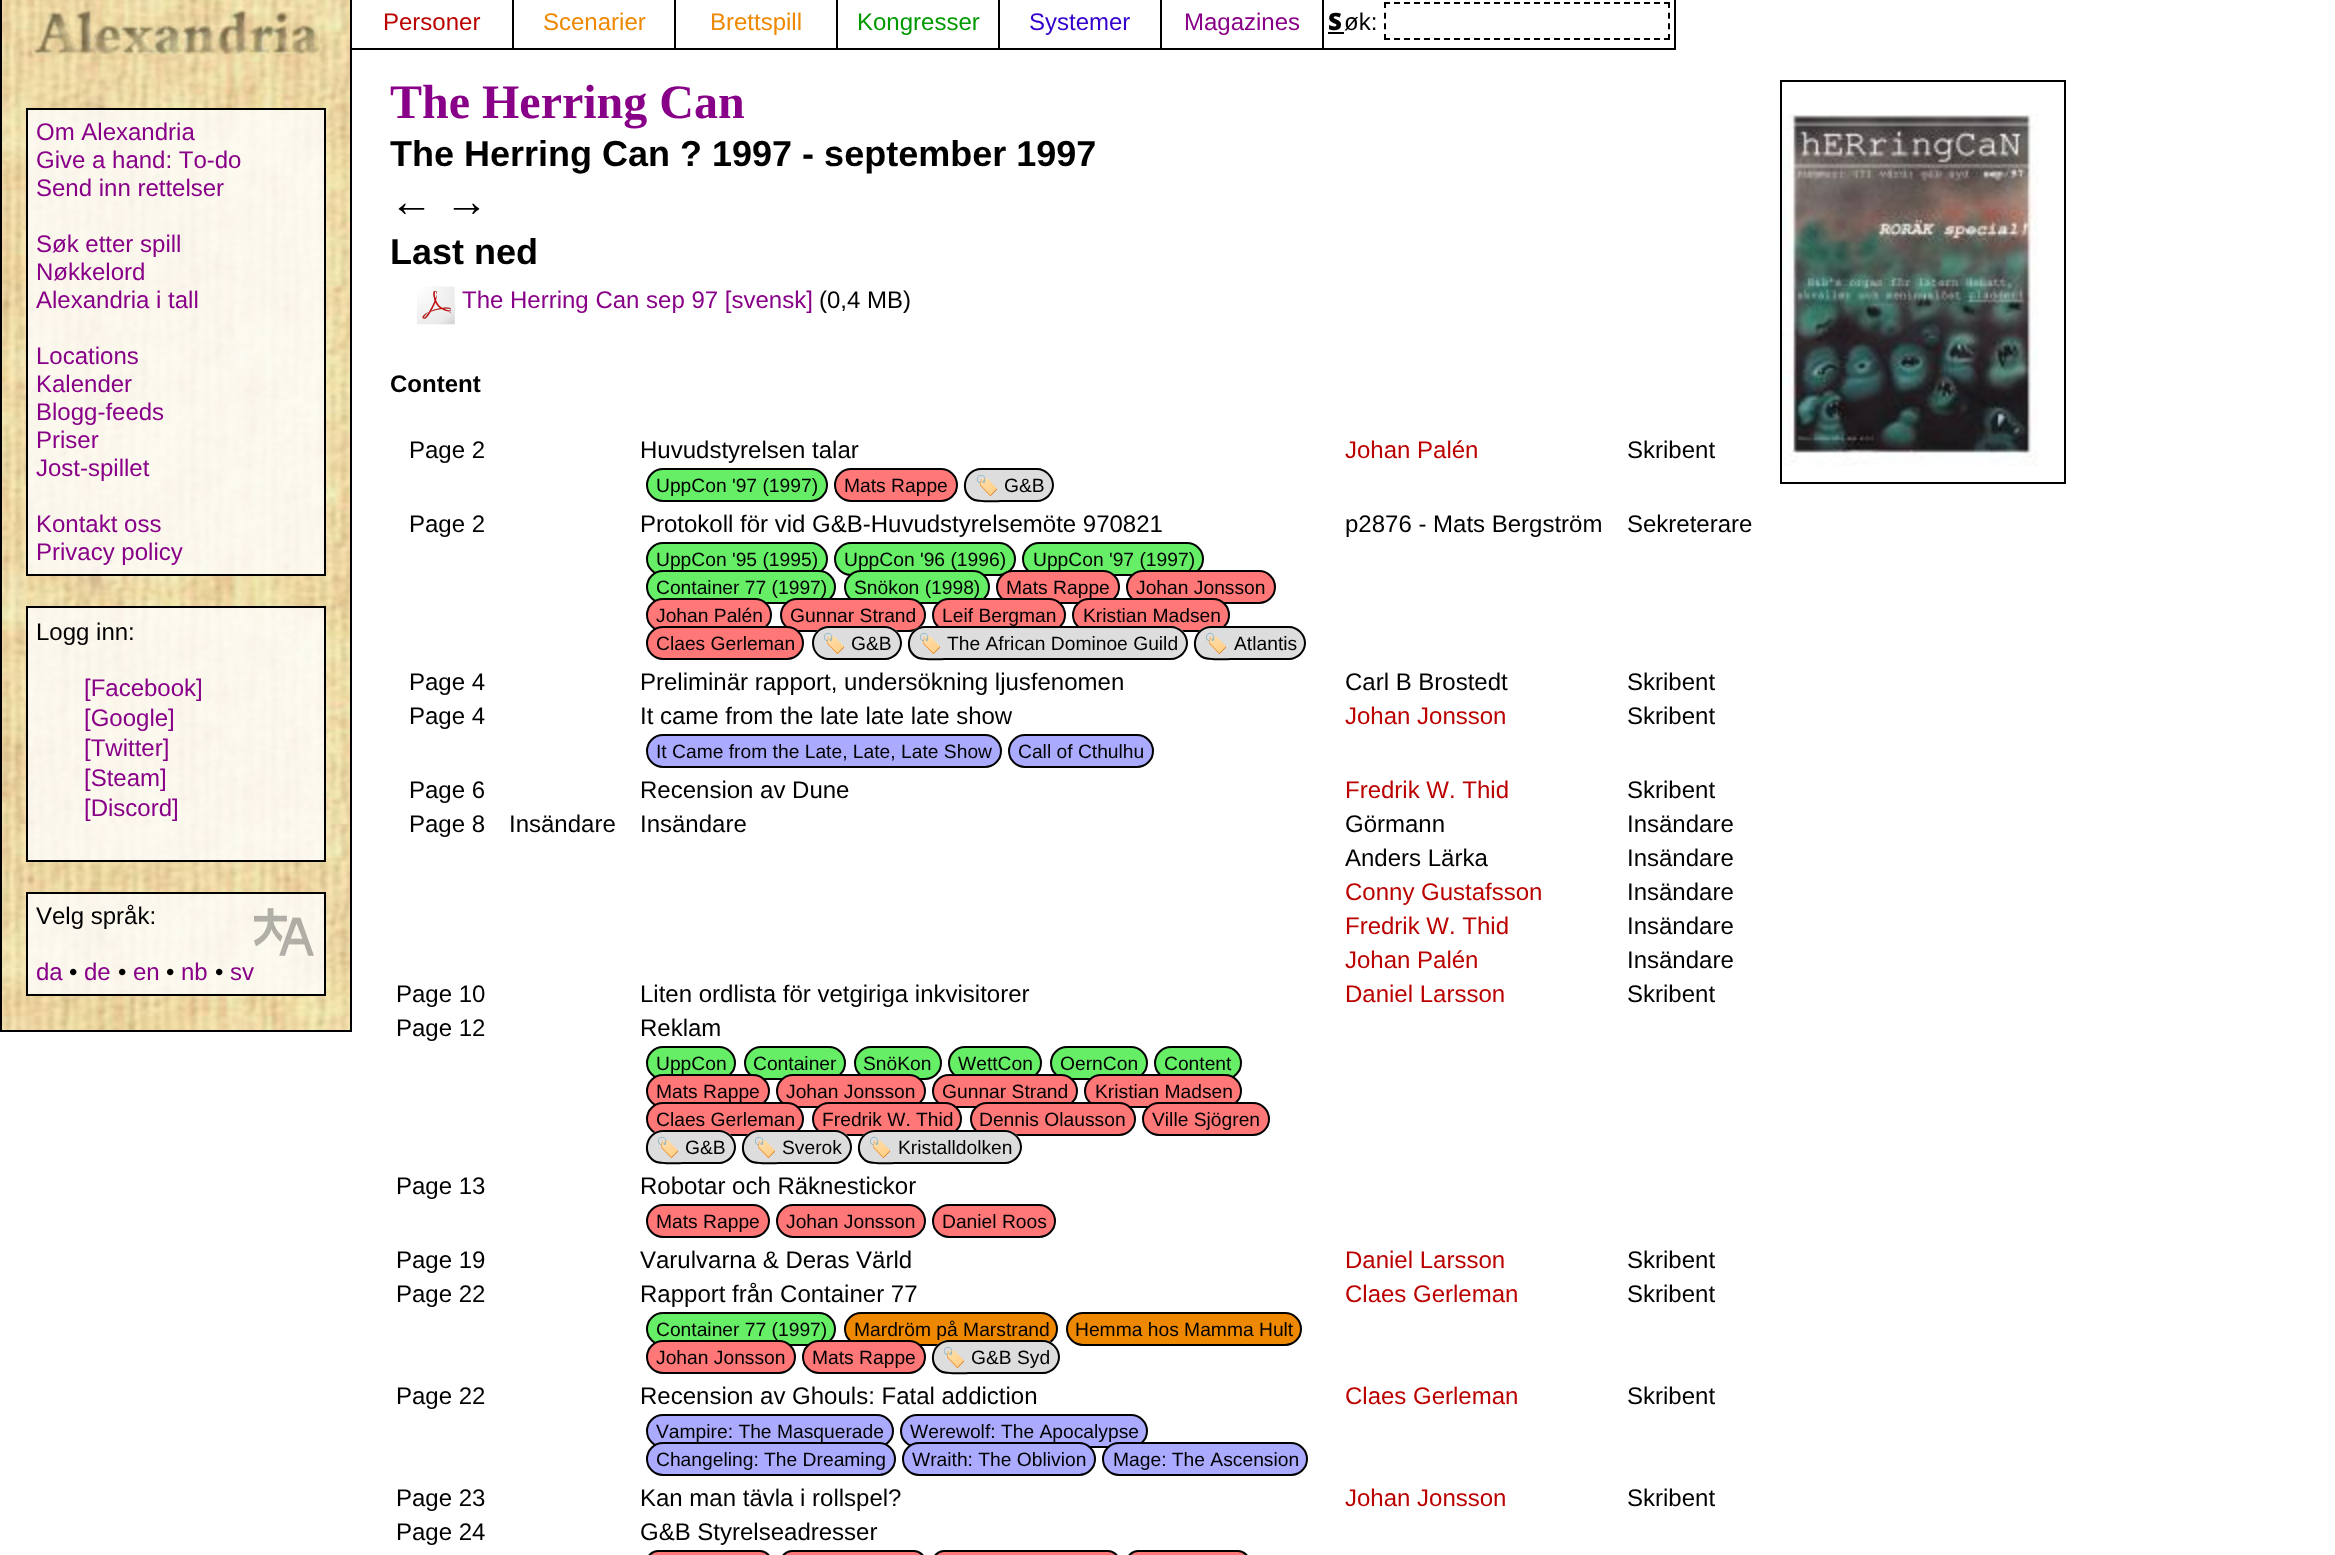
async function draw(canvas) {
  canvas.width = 2335
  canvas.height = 1555
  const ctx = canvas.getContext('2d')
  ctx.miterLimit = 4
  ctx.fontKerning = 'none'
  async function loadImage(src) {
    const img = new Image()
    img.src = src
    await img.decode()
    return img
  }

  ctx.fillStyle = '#fff'
  ctx.fillRect(0, 0, 2335, 1555)
  ctx.drawImage(await loadImage('image0.png'), 2, 0, 348, 1030)
  ctx.strokeStyle = '#000'
  ctx.lineWidth = 2
  ctx.strokeRect(1, -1, 350, 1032)
  ctx.strokeRect(351, -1, 1324, 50)
  ctx.fillStyle = '#000'
  ctx.fillRect(512, 0, 2, 48)
  ctx.font = '24px Liberation Sans'
  ctx.fillStyle = '#b00'
  ctx.fillText('Personer', 383, 30)
  ctx.fillStyle = '#000'
  ctx.fillRect(674, 0, 2, 48)
  ctx.fillStyle = '#e80'
  ctx.fillText('Scenarier', 543, 30)
  ctx.fillStyle = '#000'
  ctx.fillRect(836, 0, 2, 48)
  ctx.fillStyle = '#e80'
  ctx.fillText('Brettspill', 710, 30)
  ctx.fillStyle = '#000'
  ctx.fillRect(998, 0, 2, 48)
  ctx.fillStyle = '#090'
  ctx.fillText('Kongresser', 857, 30)
  ctx.fillStyle = '#000'
  ctx.fillRect(1160, 0, 2, 48)
  ctx.fillStyle = '#30c'
  ctx.fillText('Systemer', 1029, 30)
  ctx.fillStyle = '#000'
  ctx.fillRect(1322, 0, 2, 48)
  ctx.fillStyle = '#808'
  ctx.fillText('Magazines', 1184, 30)
  ctx.font = '900 24px Noto Sans'
  ctx.fillStyle = '#000'
  ctx.fillText('S', 1328, 30)
  ctx.fillRect(1328, 32, 16, 2)
  ctx.font = '24px Liberation Sans'
  ctx.fillText('øk:', 1344, 30)
  ctx.beginPath()
  ctx.moveTo(1384, 3)
  ctx.lineTo(1670, 3)
  ctx.setLineDash([6, 4])
  ctx.stroke()
  ctx.beginPath()
  ctx.moveTo(1669, 2)
  ctx.lineTo(1669, 40)
  ctx.setLineDash([6, 4.66])
  ctx.stroke()
  ctx.beginPath()
  ctx.moveTo(1384, 39)
  ctx.lineTo(1670, 39)
  ctx.setLineDash([6, 4])
  ctx.stroke()
  ctx.beginPath()
  ctx.moveTo(1385, 2)
  ctx.lineTo(1385, 40)
  ctx.setLineDash([6, 4.66])
  ctx.stroke()
  ctx.drawImage(await loadImage('image1.png'), 31, 9, 297, 51)
  ctx.fillStyle = '#ffffffcc'
  ctx.beginPath()
  ctx.rect(27, 109, 298, 466)
  ctx.fill()
  ctx.setLineDash([])
  ctx.stroke()
  ctx.fillStyle = '#808'
  ctx.fillText('Om Alexandria', 36, 140)
  ctx.fillText('Give a hand: To-do', 36, 168)
  ctx.fillText('Send inn rettelser', 36, 196)
  ctx.fillText('Søk etter spill', 36, 252)
  ctx.fillText('Nøkkelord', 36, 280)
  ctx.fillText('Alexandria i tall', 36, 308)
  ctx.fillText('Locations', 36, 364)
  ctx.fillText('Kalender', 36, 392)
  ctx.fillText('Blogg-feeds', 36, 420)
  ctx.fillText('Priser', 36, 448)
  ctx.fillText('Jost-spillet', 36, 476)
  ctx.fillText('Kontakt oss', 36, 532)
  ctx.fillText('Privacy policy', 36, 560)
  ctx.fillStyle = '#ffffffcc'
  ctx.beginPath()
  ctx.rect(27, 607, 298, 254)
  ctx.fill()
  ctx.stroke()
  ctx.fillStyle = '#000'
  ctx.fillText('Logg inn:', 36, 640)
  ctx.fillStyle = '#808'
  ctx.fillText('[Facebook]', 84, 696)
  ctx.fillText('[Google]', 84, 726)
  ctx.fillText('[Twitter]', 84, 756)
  ctx.fillText('[Steam]', 84, 786)
  ctx.fillText('[Discord]', 84, 816)
  ctx.fillStyle = '#ffffffcc'
  ctx.beginPath()
  ctx.rect(27, 893, 298, 102)
  ctx.fill()
  ctx.stroke()
  ctx.fillStyle = '#000'
  ctx.fillText('Velg språk:', 36, 924)
  ctx.drawImage(await loadImage('image2.png'), 254, 908, 60, 48)
  ctx.fillStyle = '#808'
  ctx.fillText('da', 36, 980)
  ctx.fillStyle = '#000'
  ctx.fillText('•', 69, 980)
  ctx.fillStyle = '#808'
  ctx.fillText('de', 84, 980)
  ctx.fillStyle = '#000'
  ctx.fillText('•', 118, 980)
  ctx.fillStyle = '#808'
  ctx.fillText('en', 133, 980)
  ctx.fillStyle = '#000'
  ctx.fillText('•', 166, 980)
  ctx.fillStyle = '#808'
  ctx.fillText('nb', 181, 980)
  ctx.fillStyle = '#000'
  ctx.fillText('•', 215, 980)
  ctx.fillStyle = '#808'
  ctx.fillText('sv', 230, 980)
  ctx.font = 'bold 48px Liberation Serif'
  ctx.fillText('The Herring Can', 390, 118)
  ctx.font = 'bold 36px Liberation Sans'
  ctx.fillStyle = '#000'
  ctx.fillText('The Herring Can ? 1997 - september 1997', 390, 166)
  ctx.font = 'bold 43px Liberation Sans'
  ctx.fillText('← →', 390, 216)
  ctx.font = 'bold 36px Liberation Sans'
  ctx.fillText('Last ned', 390, 264)
  ctx.drawImage(await loadImage('image3.png'), 417, 286, 38, 39)
  ctx.font = '24px Liberation Sans'
  ctx.fillStyle = '#808'
  ctx.fillText('The Herring Can sep 97 [svensk]', 462, 308)
  ctx.fillStyle = '#000'
  ctx.fillText('(0,4 MB)', 819, 308)
  ctx.font = 'bold 24px Liberation Sans'
  ctx.fillText('Content', 390, 392)
  ctx.font = '24px Liberation Sans'
  ctx.fillText('Page 2', 409, 458)
  ctx.fillText('Huvudstyrelsen talar', 640, 458)
  ctx.fillStyle = '#6e6'
  ctx.beginPath()
  ctx.roundRect(647, 469, 180, 32, 16)
  ctx.fill()
  ctx.stroke()
  ctx.font = '19.25px Liberation Sans'
  ctx.fillStyle = '#000'
  ctx.fillText('UppCon \'97 (1997)', 656, 492)
  ctx.fillStyle = '#f77'
  ctx.beginPath()
  ctx.roundRect(835, 469, 122, 32, 16)
  ctx.fill()
  ctx.stroke()
  ctx.fillStyle = '#000'
  ctx.fillText('Mats Rappe', 844, 492)
  ctx.fillStyle = '#ddd'
  ctx.beginPath()
  ctx.roundRect(964, 468, 40, 34, [17, 0, 0, 17])
  ctx.fill()
  ctx.fillStyle = '#000'
  ctx.beginPath()
  ctx.moveTo(981, 468)
  ctx.lineTo(1004, 468)
  ctx.lineTo(1004, 502)
  ctx.bezierCurveTo(997, 502, 980, 503, 974, 501)
  ctx.bezierCurveTo(957, 494, 963, 468, 981, 468)
  ctx.closePath()
  ctx.moveTo(981, 470)
  ctx.lineTo(1004, 470)
  ctx.lineTo(1004, 500)
  ctx.bezierCurveTo(997, 500, 981, 501, 975, 499)
  ctx.bezierCurveTo(960, 493, 965, 470, 981, 470)
  ctx.closePath()
  ctx.fill('evenodd')
  ctx.font = '19.25px Noto Color Emoji'
  ctx.fillText('🏷️', 975, 492)
  ctx.fillStyle = '#ddd'
  ctx.beginPath()
  ctx.roundRect(1004, 468, 50, 34, [0, 17, 17, 0])
  ctx.fill()
  ctx.fillStyle = '#000'
  ctx.beginPath()
  ctx.moveTo(1004, 468)
  ctx.lineTo(1037, 468)
  ctx.bezierCurveTo(1046, 468, 1054, 476, 1054, 485)
  ctx.bezierCurveTo(1054, 494, 1046, 502, 1037, 502)
  ctx.lineTo(1004, 502)
  ctx.closePath()
  ctx.moveTo(1004, 470)
  ctx.lineTo(1037, 470)
  ctx.bezierCurveTo(1045, 470, 1052, 477, 1052, 485)
  ctx.bezierCurveTo(1052, 493, 1045, 500, 1037, 500)
  ctx.lineTo(1004, 500)
  ctx.closePath()
  ctx.fill('evenodd')
  ctx.font = '19.25px Liberation Sans'
  ctx.fillText('G&B', 1004, 492)
  ctx.font = '24px Liberation Sans'
  ctx.fillStyle = '#b00'
  ctx.fillText('Johan Palén', 1345, 458)
  ctx.fillStyle = '#000'
  ctx.fillText('Skribent', 1627, 458)
  ctx.fillText('Page 2', 409, 532)
  ctx.fillText('Protokoll för vid G&B-Huvudstyrelsemöte 970821', 640, 532)
  ctx.fillStyle = '#6e6'
  ctx.beginPath()
  ctx.roundRect(647, 543, 180, 32, 16)
  ctx.fill()
  ctx.stroke()
  ctx.font = '19.25px Liberation Sans'
  ctx.fillStyle = '#000'
  ctx.fillText('UppCon \'95 (1995)', 656, 566)
  ctx.fillStyle = '#6e6'
  ctx.beginPath()
  ctx.roundRect(835, 543, 180, 32, 16)
  ctx.fill()
  ctx.stroke()
  ctx.fillStyle = '#000'
  ctx.fillText('UppCon \'96 (1996)', 844, 566)
  ctx.fillStyle = '#6e6'
  ctx.beginPath()
  ctx.roundRect(1023, 543, 180, 32, 16)
  ctx.fill()
  ctx.stroke()
  ctx.fillStyle = '#000'
  ctx.fillText('UppCon \'97 (1997)', 1033, 566)
  ctx.fillStyle = '#6e6'
  ctx.beginPath()
  ctx.roundRect(647, 571, 188, 32, 16)
  ctx.fill()
  ctx.stroke()
  ctx.fillStyle = '#000'
  ctx.fillText('Container 77 (1997)', 656, 594)
  ctx.fillStyle = '#6e6'
  ctx.beginPath()
  ctx.roundRect(845, 571, 144, 32, 16)
  ctx.fill()
  ctx.stroke()
  ctx.fillStyle = '#000'
  ctx.fillText('Snökon (1998)', 854, 594)
  ctx.fillStyle = '#f77'
  ctx.beginPath()
  ctx.roundRect(997, 571, 122, 32, 16)
  ctx.fill()
  ctx.stroke()
  ctx.fillStyle = '#000'
  ctx.fillText('Mats Rappe', 1006, 594)
  ctx.fillStyle = '#f77'
  ctx.beginPath()
  ctx.roundRect(1127, 571, 148, 32, 16)
  ctx.fill()
  ctx.stroke()
  ctx.fillStyle = '#000'
  ctx.fillText('Johan Jonsson', 1136, 594)
  ctx.fillStyle = '#f77'
  ctx.beginPath()
  ctx.roundRect(647, 599, 124, 32, 16)
  ctx.fill()
  ctx.stroke()
  ctx.fillStyle = '#000'
  ctx.fillText('Johan Palén', 656, 622)
  ctx.fillStyle = '#f77'
  ctx.beginPath()
  ctx.roundRect(781, 599, 144, 32, 16)
  ctx.fill()
  ctx.stroke()
  ctx.fillStyle = '#000'
  ctx.fillText('Gunnar Strand', 790, 622)
  ctx.fillStyle = '#f77'
  ctx.beginPath()
  ctx.roundRect(933, 599, 132, 32, 16)
  ctx.fill()
  ctx.stroke()
  ctx.fillStyle = '#000'
  ctx.fillText('Leif Bergman', 942, 622)
  ctx.fillStyle = '#f77'
  ctx.beginPath()
  ctx.roundRect(1073, 599, 156, 32, 16)
  ctx.fill()
  ctx.stroke()
  ctx.fillStyle = '#000'
  ctx.fillText('Kristian Madsen', 1083, 622)
  ctx.fillStyle = '#f77'
  ctx.beginPath()
  ctx.roundRect(647, 627, 156, 32, 16)
  ctx.fill()
  ctx.stroke()
  ctx.fillStyle = '#000'
  ctx.fillText('Claes Gerleman', 656, 650)
  ctx.fillStyle = '#ddd'
  ctx.beginPath()
  ctx.roundRect(812, 626, 38, 34, [17, 0, 0, 17])
  ctx.fill()
  ctx.fillStyle = '#000'
  ctx.beginPath()
  ctx.moveTo(829, 626)
  ctx.lineTo(850, 626)
  ctx.lineTo(850, 660)
  ctx.lineTo(829, 660)
  ctx.bezierCurveTo(819.5, 660, 812, 652.5, 812, 643)
  ctx.bezierCurveTo(812, 633.5, 819.5, 626, 829, 626)
  ctx.closePath()
  ctx.moveTo(829, 628)
  ctx.lineTo(850, 628)
  ctx.lineTo(850, 658)
  ctx.lineTo(829, 658)
  ctx.bezierCurveTo(820.5, 658, 814, 651.5, 814, 643)
  ctx.bezierCurveTo(814, 634.5, 820.5, 628, 829, 628)
  ctx.closePath()
  ctx.fill('evenodd')
  ctx.font = '19.25px Noto Color Emoji'
  ctx.fillText('🏷️', 822, 650)
  ctx.fillStyle = '#ddd'
  ctx.beginPath()
  ctx.roundRect(850, 626, 52, 34, [0, 17, 17, 0])
  ctx.fill()
  ctx.fillStyle = '#000'
  ctx.beginPath()
  ctx.moveTo(850, 626)
  ctx.lineTo(885, 626)
  ctx.bezierCurveTo(894, 626, 902, 634, 902, 643)
  ctx.bezierCurveTo(902, 652, 894, 660, 885, 660)
  ctx.lineTo(850, 660)
  ctx.closePath()
  ctx.moveTo(850, 628)
  ctx.lineTo(885, 628)
  ctx.bezierCurveTo(893, 628, 900, 635, 900, 643)
  ctx.bezierCurveTo(900, 651, 893, 658, 885, 658)
  ctx.lineTo(850, 658)
  ctx.closePath()
  ctx.fill('evenodd')
  ctx.font = '19.25px Liberation Sans'
  ctx.fillText('G&B', 851, 650)
  ctx.fillStyle = '#ddd'
  ctx.beginPath()
  ctx.roundRect(908, 626, 40, 34, [17, 0, 0, 17])
  ctx.fill()
  ctx.fillStyle = '#000'
  ctx.beginPath()
  ctx.moveTo(925, 626)
  ctx.lineTo(948, 626)
  ctx.lineTo(948, 660)
  ctx.bezierCurveTo(941, 660, 924, 661, 918, 659)
  ctx.bezierCurveTo(901, 652, 907, 626, 925, 626)
  ctx.closePath()
  ctx.moveTo(925, 628)
  ctx.lineTo(948, 628)
  ctx.lineTo(948, 658)
  ctx.bezierCurveTo(941, 658, 925, 659, 919, 657)
  ctx.bezierCurveTo(904, 651, 909, 628, 925, 628)
  ctx.closePath()
  ctx.fill('evenodd')
  ctx.font = '19.25px Noto Color Emoji'
  ctx.fillText('🏷️', 918, 650)
  ctx.fillStyle = '#ddd'
  ctx.beginPath()
  ctx.roundRect(948, 626, 240, 34, [0, 17, 17, 0])
  ctx.fill()
  ctx.fillStyle = '#000'
  ctx.beginPath()
  ctx.moveTo(948, 626)
  ctx.lineTo(1171, 626)
  ctx.bezierCurveTo(1180, 626, 1188, 634, 1188, 643)
  ctx.bezierCurveTo(1188, 652, 1180, 660, 1171, 660)
  ctx.lineTo(948, 660)
  ctx.closePath()
  ctx.moveTo(948, 628)
  ctx.lineTo(1171, 628)
  ctx.bezierCurveTo(1179, 628, 1186, 635, 1186, 643)
  ctx.bezierCurveTo(1186, 651, 1179, 658, 1171, 658)
  ctx.lineTo(948, 658)
  ctx.closePath()
  ctx.fill('evenodd')
  ctx.font = '19.25px Liberation Sans'
  ctx.fillText('The African Dominoe Guild', 947, 650)
  ctx.fillStyle = '#ddd'
  ctx.beginPath()
  ctx.roundRect(1194, 626, 40, 34, [17, 0, 0, 17])
  ctx.fill()
  ctx.fillStyle = '#000'
  ctx.beginPath()
  ctx.moveTo(1211, 626)
  ctx.lineTo(1234, 626)
  ctx.lineTo(1234, 660)
  ctx.bezierCurveTo(1227, 660, 1210, 661, 1204, 659)
  ctx.bezierCurveTo(1187, 652, 1193, 626, 1211, 626)
  ctx.closePath()
  ctx.moveTo(1211, 628)
  ctx.lineTo(1234, 628)
  ctx.lineTo(1234, 658)
  ctx.bezierCurveTo(1227, 658, 1211, 659, 1205, 657)
  ctx.bezierCurveTo(1190, 651, 1195, 628, 1211, 628)
  ctx.closePath()
  ctx.fill('evenodd')
  ctx.font = '19.25px Noto Color Emoji'
  ctx.fillText('🏷️', 1204, 650)
  ctx.fillStyle = '#ddd'
  ctx.beginPath()
  ctx.roundRect(1234, 626, 72, 34, [0, 17, 17, 0])
  ctx.fill()
  ctx.fillStyle = '#000'
  ctx.beginPath()
  ctx.moveTo(1234, 626)
  ctx.lineTo(1289, 626)
  ctx.bezierCurveTo(1298, 626, 1306, 634, 1306, 643)
  ctx.bezierCurveTo(1306, 652, 1298, 660, 1289, 660)
  ctx.lineTo(1234, 660)
  ctx.closePath()
  ctx.moveTo(1234, 628)
  ctx.lineTo(1289, 628)
  ctx.bezierCurveTo(1297, 628, 1304, 635, 1304, 643)
  ctx.bezierCurveTo(1304, 651, 1297, 658, 1289, 658)
  ctx.lineTo(1234, 658)
  ctx.closePath()
  ctx.fill('evenodd')
  ctx.font = '19.25px Liberation Sans'
  ctx.fillText('Atlantis', 1234, 650)
  ctx.font = '24px Liberation Sans'
  ctx.fillText('p2876 - Mats Bergström', 1345, 532)
  ctx.fillText('Sekreterare', 1627, 532)
  ctx.fillText('Page 4', 409, 690)
  ctx.fillText('Preliminär rapport, undersökning ljusfenomen', 640, 690)
  ctx.fillText('Carl B Brostedt', 1345, 690)
  ctx.fillText('Skribent', 1627, 690)
  ctx.fillText('Page 4', 409, 724)
  ctx.fillText('It came from the late late late show', 640, 724)
  ctx.fillStyle = '#aaf'
  ctx.beginPath()
  ctx.roundRect(647, 735, 354, 32, 16)
  ctx.fill()
  ctx.stroke()
  ctx.font = '19.25px Liberation Sans'
  ctx.fillStyle = '#000'
  ctx.fillText('It Came from the Late, Late, Late Show', 656, 758)
  ctx.fillStyle = '#aaf'
  ctx.beginPath()
  ctx.roundRect(1009, 735, 144, 32, 16)
  ctx.fill()
  ctx.stroke()
  ctx.fillStyle = '#000'
  ctx.fillText('Call of Cthulhu', 1018, 758)
  ctx.font = '24px Liberation Sans'
  ctx.fillStyle = '#b00'
  ctx.fillText('Johan Jonsson', 1345, 724)
  ctx.fillStyle = '#000'
  ctx.fillText('Skribent', 1627, 724)
  ctx.fillText('Page 6', 409, 798)
  ctx.fillText('Recension av Dune', 640, 798)
  ctx.fillStyle = '#b00'
  ctx.fillText('Fredrik W. Thid', 1345, 798)
  ctx.fillStyle = '#000'
  ctx.fillText('Skribent', 1627, 798)
  ctx.fillText('Page 8', 409, 832)
  ctx.fillText('Insändare', 509, 832)
  ctx.fillText('Insändare', 640, 832)
  ctx.fillText('Görmann', 1345, 832)
  ctx.fillText('Insändare', 1627, 832)
  ctx.fillText('Anders Lärka', 1345, 866)
  ctx.fillText('Insändare', 1627, 866)
  ctx.fillStyle = '#b00'
  ctx.fillText('Conny Gustafsson', 1345, 900)
  ctx.fillStyle = '#000'
  ctx.fillText('Insändare', 1627, 900)
  ctx.fillStyle = '#b00'
  ctx.fillText('Fredrik W. Thid', 1345, 934)
  ctx.fillStyle = '#000'
  ctx.fillText('Insändare', 1627, 934)
  ctx.fillStyle = '#b00'
  ctx.fillText('Johan Palén', 1345, 968)
  ctx.fillStyle = '#000'
  ctx.fillText('Insändare', 1627, 968)
  ctx.fillText('Page 10', 396, 1002)
  ctx.fillText('Liten ordlista för vetgiriga inkvisitorer', 640, 1002)
  ctx.fillStyle = '#b00'
  ctx.fillText('Daniel Larsson', 1345, 1002)
  ctx.fillStyle = '#000'
  ctx.fillText('Skribent', 1627, 1002)
  ctx.fillText('Page 12', 396, 1036)
  ctx.fillText('Reklam', 640, 1036)
  ctx.fillStyle = '#6e6'
  ctx.beginPath()
  ctx.roundRect(647, 1047, 88, 32, 16)
  ctx.fill()
  ctx.stroke()
  ctx.font = '19.25px Liberation Sans'
  ctx.fillStyle = '#000'
  ctx.fillText('UppCon', 656, 1070)
  ctx.fillStyle = '#6e6'
  ctx.beginPath()
  ctx.roundRect(745, 1047, 100, 32, 16)
  ctx.fill()
  ctx.stroke()
  ctx.fillStyle = '#000'
  ctx.fillText('Container', 753, 1070)
  ctx.fillStyle = '#6e6'
  ctx.beginPath()
  ctx.roundRect(855, 1047, 86, 32, 16)
  ctx.fill()
  ctx.stroke()
  ctx.fillStyle = '#000'
  ctx.fillText('SnöKon', 863, 1070)
  ctx.fillStyle = '#6e6'
  ctx.beginPath()
  ctx.roundRect(949, 1047, 92, 32, 16)
  ctx.fill()
  ctx.stroke()
  ctx.fillStyle = '#000'
  ctx.fillText('WettCon', 958, 1070)
  ctx.fillStyle = '#6e6'
  ctx.beginPath()
  ctx.roundRect(1051, 1047, 96, 32, 16)
  ctx.fill()
  ctx.stroke()
  ctx.fillStyle = '#000'
  ctx.fillText('OernCon', 1060, 1070)
  ctx.fillStyle = '#6e6'
  ctx.beginPath()
  ctx.roundRect(1155, 1047, 86, 32, 16)
  ctx.fill()
  ctx.stroke()
  ctx.fillStyle = '#000'
  ctx.fillText('Content', 1164, 1070)
  ctx.fillStyle = '#f77'
  ctx.beginPath()
  ctx.roundRect(647, 1075, 122, 32, 16)
  ctx.fill()
  ctx.stroke()
  ctx.fillStyle = '#000'
  ctx.fillText('Mats Rappe', 656, 1098)
  ctx.fillStyle = '#f77'
  ctx.beginPath()
  ctx.roundRect(777, 1075, 148, 32, 16)
  ctx.fill()
  ctx.stroke()
  ctx.fillStyle = '#000'
  ctx.fillText('Johan Jonsson', 786, 1098)
  ctx.fillStyle = '#f77'
  ctx.beginPath()
  ctx.roundRect(933, 1075, 144, 32, 16)
  ctx.fill()
  ctx.stroke()
  ctx.fillStyle = '#000'
  ctx.fillText('Gunnar Strand', 942, 1098)
  ctx.fillStyle = '#f77'
  ctx.beginPath()
  ctx.roundRect(1085, 1075, 156, 32, 16)
  ctx.fill()
  ctx.stroke()
  ctx.fillStyle = '#000'
  ctx.fillText('Kristian Madsen', 1095, 1098)
  ctx.fillStyle = '#f77'
  ctx.beginPath()
  ctx.roundRect(647, 1103, 156, 32, 16)
  ctx.fill()
  ctx.stroke()
  ctx.fillStyle = '#000'
  ctx.fillText('Claes Gerleman', 656, 1126)
  ctx.fillStyle = '#f77'
  ctx.beginPath()
  ctx.roundRect(813, 1103, 148, 32, 16)
  ctx.fill()
  ctx.stroke()
  ctx.fillStyle = '#000'
  ctx.fillText('Fredrik W. Thid', 822, 1126)
  ctx.fillStyle = '#f77'
  ctx.beginPath()
  ctx.roundRect(971, 1103, 164, 32, 16)
  ctx.fill()
  ctx.stroke()
  ctx.fillStyle = '#000'
  ctx.fillText('Dennis Olausson', 979, 1126)
  ctx.fillStyle = '#f77'
  ctx.beginPath()
  ctx.roundRect(1143, 1103, 126, 32, 16)
  ctx.fill()
  ctx.stroke()
  ctx.fillStyle = '#000'
  ctx.fillText('Ville Sjögren', 1152, 1126)
  ctx.fillStyle = '#ddd'
  ctx.beginPath()
  ctx.roundRect(646, 1130, 40, 34, [17, 0, 0, 17])
  ctx.fill()
  ctx.fillStyle = '#000'
  ctx.beginPath()
  ctx.moveTo(663, 1130)
  ctx.lineTo(686, 1130)
  ctx.lineTo(686, 1164)
  ctx.bezierCurveTo(679, 1164, 662, 1165, 656, 1163)
  ctx.bezierCurveTo(639, 1156, 645, 1130, 663, 1130)
  ctx.closePath()
  ctx.moveTo(663, 1132)
  ctx.lineTo(686, 1132)
  ctx.lineTo(686, 1162)
  ctx.bezierCurveTo(679, 1162, 663, 1163, 657, 1161)
  ctx.bezierCurveTo(642, 1155, 647, 1132, 663, 1132)
  ctx.closePath()
  ctx.fill('evenodd')
  ctx.font = '19.25px Noto Color Emoji'
  ctx.fillText('🏷️', 656, 1154)
  ctx.fillStyle = '#ddd'
  ctx.beginPath()
  ctx.roundRect(686, 1130, 50, 34, [0, 17, 17, 0])
  ctx.fill()
  ctx.fillStyle = '#000'
  ctx.beginPath()
  ctx.moveTo(686, 1130)
  ctx.lineTo(719, 1130)
  ctx.bezierCurveTo(728, 1130, 736, 1138, 736, 1147)
  ctx.bezierCurveTo(736, 1156, 728, 1164, 719, 1164)
  ctx.lineTo(686, 1164)
  ctx.closePath()
  ctx.moveTo(686, 1132)
  ctx.lineTo(719, 1132)
  ctx.bezierCurveTo(727, 1132, 734, 1139, 734, 1147)
  ctx.bezierCurveTo(734, 1155, 727, 1162, 719, 1162)
  ctx.lineTo(686, 1162)
  ctx.closePath()
  ctx.fill('evenodd')
  ctx.font = '19.25px Liberation Sans'
  ctx.fillText('G&B', 685, 1154)
  ctx.fillStyle = '#ddd'
  ctx.beginPath()
  ctx.roundRect(742, 1130, 40, 34, [17, 0, 0, 17])
  ctx.fill()
  ctx.fillStyle = '#000'
  ctx.beginPath()
  ctx.moveTo(759, 1130)
  ctx.lineTo(782, 1130)
  ctx.lineTo(782, 1164)
  ctx.bezierCurveTo(775, 1164, 758, 1165, 752, 1163)
  ctx.bezierCurveTo(735, 1156, 741, 1130, 759, 1130)
  ctx.closePath()
  ctx.moveTo(759, 1132)
  ctx.lineTo(782, 1132)
  ctx.lineTo(782, 1162)
  ctx.bezierCurveTo(775, 1162, 759, 1163, 753, 1161)
  ctx.bezierCurveTo(738, 1155, 743, 1132, 759, 1132)
  ctx.closePath()
  ctx.fill('evenodd')
  ctx.font = '19.25px Noto Color Emoji'
  ctx.fillText('🏷️', 753, 1154)
  ctx.fillStyle = '#ddd'
  ctx.beginPath()
  ctx.roundRect(782, 1130, 70, 34, [0, 17, 17, 0])
  ctx.fill()
  ctx.fillStyle = '#000'
  ctx.beginPath()
  ctx.moveTo(782, 1130)
  ctx.lineTo(835, 1130)
  ctx.bezierCurveTo(844, 1130, 852, 1138, 852, 1147)
  ctx.bezierCurveTo(852, 1156, 844, 1164, 835, 1164)
  ctx.lineTo(782, 1164)
  ctx.closePath()
  ctx.moveTo(782, 1132)
  ctx.lineTo(835, 1132)
  ctx.bezierCurveTo(843, 1132, 850, 1139, 850, 1147)
  ctx.bezierCurveTo(850, 1155, 843, 1162, 835, 1162)
  ctx.lineTo(782, 1162)
  ctx.closePath()
  ctx.fill('evenodd')
  ctx.font = '19.25px Liberation Sans'
  ctx.fillText('Sverok', 782, 1154)
  ctx.fillStyle = '#ddd'
  ctx.beginPath()
  ctx.roundRect(858, 1130, 40, 34, [17, 0, 0, 17])
  ctx.fill()
  ctx.fillStyle = '#000'
  ctx.beginPath()
  ctx.moveTo(875, 1130)
  ctx.lineTo(898, 1130)
  ctx.lineTo(898, 1164)
  ctx.bezierCurveTo(891, 1164, 874, 1165, 868, 1163)
  ctx.bezierCurveTo(851, 1156, 857, 1130, 875, 1130)
  ctx.closePath()
  ctx.moveTo(875, 1132)
  ctx.lineTo(898, 1132)
  ctx.lineTo(898, 1162)
  ctx.bezierCurveTo(891, 1162, 875, 1163, 869, 1161)
  ctx.bezierCurveTo(854, 1155, 859, 1132, 875, 1132)
  ctx.closePath()
  ctx.fill('evenodd')
  ctx.font = '19.25px Noto Color Emoji'
  ctx.fillText('🏷️', 868, 1154)
  ctx.fillStyle = '#ddd'
  ctx.beginPath()
  ctx.roundRect(898, 1130, 124, 34, [0, 17, 17, 0])
  ctx.fill()
  ctx.fillStyle = '#000'
  ctx.beginPath()
  ctx.moveTo(898, 1130)
  ctx.lineTo(1005, 1130)
  ctx.bezierCurveTo(1014, 1130, 1022, 1138, 1022, 1147)
  ctx.bezierCurveTo(1022, 1156, 1014, 1164, 1005, 1164)
  ctx.lineTo(898, 1164)
  ctx.closePath()
  ctx.moveTo(898, 1132)
  ctx.lineTo(1005, 1132)
  ctx.bezierCurveTo(1013, 1132, 1020, 1139, 1020, 1147)
  ctx.bezierCurveTo(1020, 1155, 1013, 1162, 1005, 1162)
  ctx.lineTo(898, 1162)
  ctx.closePath()
  ctx.fill('evenodd')
  ctx.font = '19.25px Liberation Sans'
  ctx.fillText('Kristalldolken', 898, 1154)
  ctx.font = '24px Liberation Sans'
  ctx.fillText('Page 13', 396, 1194)
  ctx.fillText('Robotar och Räknestickor', 640, 1194)
  ctx.fillStyle = '#f77'
  ctx.beginPath()
  ctx.roundRect(647, 1205, 122, 32, 16)
  ctx.fill()
  ctx.stroke()
  ctx.font = '19.25px Liberation Sans'
  ctx.fillStyle = '#000'
  ctx.fillText('Mats Rappe', 656, 1228)
  ctx.fillStyle = '#f77'
  ctx.beginPath()
  ctx.roundRect(777, 1205, 148, 32, 16)
  ctx.fill()
  ctx.stroke()
  ctx.fillStyle = '#000'
  ctx.fillText('Johan Jonsson', 786, 1228)
  ctx.fillStyle = '#f77'
  ctx.beginPath()
  ctx.roundRect(933, 1205, 122, 32, 16)
  ctx.fill()
  ctx.stroke()
  ctx.fillStyle = '#000'
  ctx.fillText('Daniel Roos', 942, 1228)
  ctx.font = '24px Liberation Sans'
  ctx.fillText('Page 19', 396, 1268)
  ctx.fillText('Varulvarna & Deras Värld', 640, 1268)
  ctx.fillStyle = '#b00'
  ctx.fillText('Daniel Larsson', 1345, 1268)
  ctx.fillStyle = '#000'
  ctx.fillText('Skribent', 1627, 1268)
  ctx.fillText('Page 22', 396, 1302)
  ctx.fillText('Rapport från Container 77', 640, 1302)
  ctx.fillStyle = '#6e6'
  ctx.beginPath()
  ctx.roundRect(647, 1313, 188, 32, 16)
  ctx.fill()
  ctx.stroke()
  ctx.font = '19.25px Liberation Sans'
  ctx.fillStyle = '#000'
  ctx.fillText('Container 77 (1997)', 656, 1336)
  ctx.fillStyle = '#e80'
  ctx.beginPath()
  ctx.roundRect(845, 1313, 212, 32, 16)
  ctx.fill()
  ctx.stroke()
  ctx.fillStyle = '#000'
  ctx.fillText('Mardröm på Marstrand', 854, 1336)
  ctx.fillStyle = '#e80'
  ctx.beginPath()
  ctx.roundRect(1067, 1313, 234, 32, 16)
  ctx.fill()
  ctx.stroke()
  ctx.fillStyle = '#000'
  ctx.fillText('Hemma hos Mamma Hult', 1075, 1336)
  ctx.fillStyle = '#f77'
  ctx.beginPath()
  ctx.roundRect(647, 1341, 148, 32, 16)
  ctx.fill()
  ctx.stroke()
  ctx.fillStyle = '#000'
  ctx.fillText('Johan Jonsson', 656, 1364)
  ctx.fillStyle = '#f77'
  ctx.beginPath()
  ctx.roundRect(803, 1341, 122, 32, 16)
  ctx.fill()
  ctx.stroke()
  ctx.fillStyle = '#000'
  ctx.fillText('Mats Rappe', 812, 1364)
  ctx.fillStyle = '#ddd'
  ctx.beginPath()
  ctx.roundRect(932, 1340, 40, 34, [17, 0, 0, 17])
  ctx.fill()
  ctx.fillStyle = '#000'
  ctx.beginPath()
  ctx.moveTo(949, 1340)
  ctx.lineTo(972, 1340)
  ctx.lineTo(972, 1374)
  ctx.bezierCurveTo(965, 1374, 948, 1375, 942, 1373)
  ctx.bezierCurveTo(925, 1366, 931, 1340, 949, 1340)
  ctx.closePath()
  ctx.moveTo(949, 1342)
  ctx.lineTo(972, 1342)
  ctx.lineTo(972, 1372)
  ctx.bezierCurveTo(965, 1372, 949, 1373, 943, 1371)
  ctx.bezierCurveTo(928, 1365, 933, 1342, 949, 1342)
  ctx.closePath()
  ctx.fill('evenodd')
  ctx.font = '19.25px Noto Color Emoji'
  ctx.fillText('🏷️', 942, 1364)
  ctx.fillStyle = '#ddd'
  ctx.beginPath()
  ctx.roundRect(972, 1340, 88, 34, [0, 17, 17, 0])
  ctx.fill()
  ctx.fillStyle = '#000'
  ctx.beginPath()
  ctx.moveTo(972, 1340)
  ctx.lineTo(1043, 1340)
  ctx.bezierCurveTo(1052, 1340, 1060, 1348, 1060, 1357)
  ctx.bezierCurveTo(1060, 1366, 1052, 1374, 1043, 1374)
  ctx.lineTo(972, 1374)
  ctx.closePath()
  ctx.moveTo(972, 1342)
  ctx.lineTo(1043, 1342)
  ctx.bezierCurveTo(1051, 1342, 1058, 1349, 1058, 1357)
  ctx.bezierCurveTo(1058, 1365, 1051, 1372, 1043, 1372)
  ctx.lineTo(972, 1372)
  ctx.closePath()
  ctx.fill('evenodd')
  ctx.font = '19.25px Liberation Sans'
  ctx.fillText('G&B Syd', 971, 1364)
  ctx.font = '24px Liberation Sans'
  ctx.fillStyle = '#b00'
  ctx.fillText('Claes Gerleman', 1345, 1302)
  ctx.fillStyle = '#000'
  ctx.fillText('Skribent', 1627, 1302)
  ctx.fillText('Page 22', 396, 1404)
  ctx.fillText('Recension av Ghouls: Fatal addiction', 640, 1404)
  ctx.fillStyle = '#aaf'
  ctx.beginPath()
  ctx.roundRect(647, 1415, 246, 32, 16)
  ctx.fill()
  ctx.stroke()
  ctx.font = '19.25px Liberation Sans'
  ctx.fillStyle = '#000'
  ctx.fillText('Vampire: The Masquerade', 656, 1438)
  ctx.fillStyle = '#aaf'
  ctx.beginPath()
  ctx.roundRect(901, 1415, 246, 32, 16)
  ctx.fill()
  ctx.stroke()
  ctx.fillStyle = '#000'
  ctx.fillText('Werewolf: The Apocalypse', 910, 1438)
  ctx.fillStyle = '#aaf'
  ctx.beginPath()
  ctx.roundRect(647, 1443, 248, 32, 16)
  ctx.fill()
  ctx.stroke()
  ctx.fillStyle = '#000'
  ctx.fillText('Changeling: The Dreaming', 656, 1466)
  ctx.fillStyle = '#aaf'
  ctx.beginPath()
  ctx.roundRect(903, 1443, 192, 32, 16)
  ctx.fill()
  ctx.stroke()
  ctx.fillStyle = '#000'
  ctx.fillText('Wraith: The Oblivion', 912, 1466)
  ctx.fillStyle = '#aaf'
  ctx.beginPath()
  ctx.roundRect(1103, 1443, 204, 32, 16)
  ctx.fill()
  ctx.stroke()
  ctx.fillStyle = '#000'
  ctx.fillText('Mage: The Ascension', 1113, 1466)
  ctx.font = '24px Liberation Sans'
  ctx.fillStyle = '#b00'
  ctx.fillText('Claes Gerleman', 1345, 1404)
  ctx.fillStyle = '#000'
  ctx.fillText('Skribent', 1627, 1404)
  ctx.fillText('Page 23', 396, 1506)
  ctx.fillText('Kan man tävla i rollspel?', 640, 1506)
  ctx.fillStyle = '#b00'
  ctx.fillText('Johan Jonsson', 1345, 1506)
  ctx.fillStyle = '#000'
  ctx.fillText('Skribent', 1627, 1506)
  ctx.fillText('Page 24', 396, 1540)
  ctx.fillText('G&B Styrelseadresser', 640, 1540)
  ctx.fillStyle = '#f77'
  ctx.beginPath()
  ctx.roundRect(647, 1551, 124, 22, 16)
  ctx.fill()
  ctx.stroke()
  ctx.beginPath()
  ctx.roundRect(781, 1551, 144, 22, 16)
  ctx.fill()
  ctx.stroke()
  ctx.beginPath()
  ctx.roundRect(933, 1551, 186, 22, 16)
  ctx.fill()
  ctx.stroke()
  ctx.beginPath()
  ctx.roundRect(1127, 1551, 122, 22, 16)
  ctx.fill()
  ctx.stroke()
  ctx.strokeRect(1781, 81, 284, 402)
  ctx.drawImage(await loadImage('image4.png'), 1782, 114, 256, 352)
}

draw(document.querySelector('canvas'))
